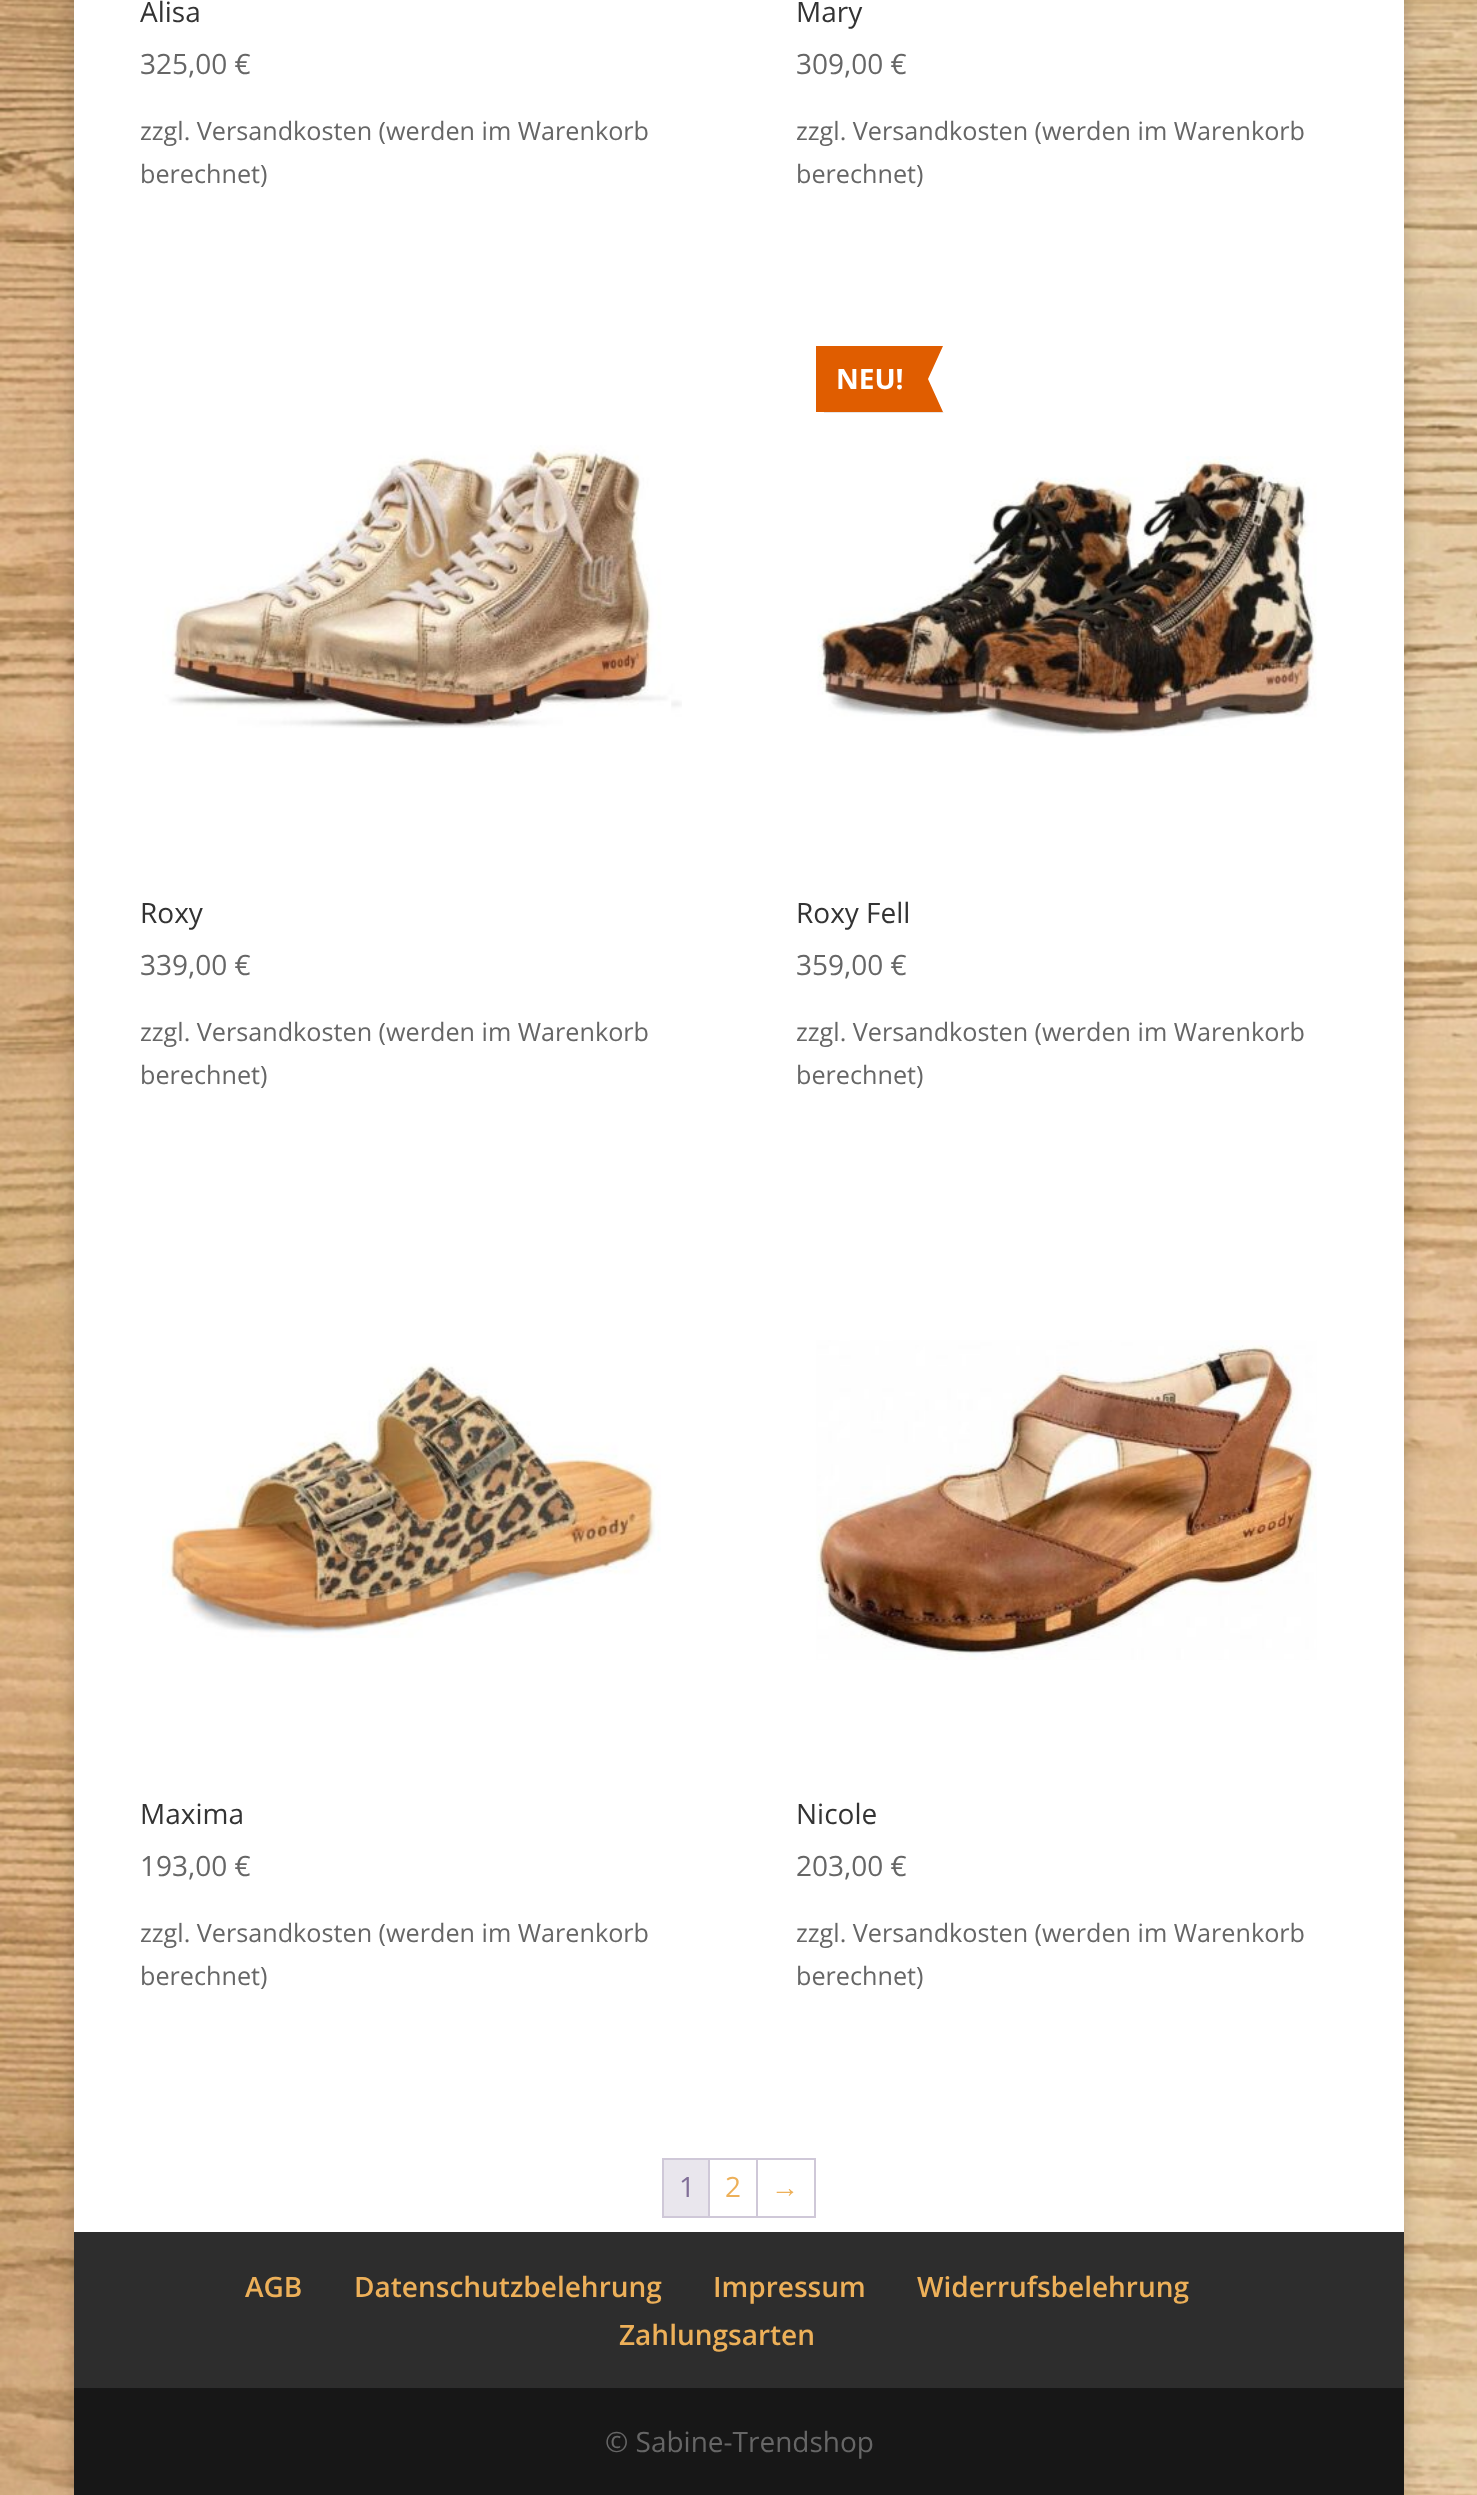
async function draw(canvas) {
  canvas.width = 1477
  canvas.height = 2495
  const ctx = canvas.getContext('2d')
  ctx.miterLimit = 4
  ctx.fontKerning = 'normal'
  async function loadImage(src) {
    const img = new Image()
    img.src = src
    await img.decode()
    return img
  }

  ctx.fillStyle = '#fff'
  ctx.fillRect(0, 0, 1477, 2495)
  ctx.drawImage(await loadImage('image0.png'), 0, 0, 1477, 2495)
  ctx.fillStyle = '#00000033'
  ctx.filter = 'blur(10px)'
  ctx.beginPath()
  ctx.rect(74, -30, 1330, 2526)
  ctx.fill()
  ctx.filter = 'none'
  ctx.fillStyle = '#fff'
  ctx.fillRect(74, 0, 1330, 2232)
  ctx.font = '28px Open Sans'
  ctx.fillStyle = '#333'
  ctx.fillText('Alisa', 140, 22)
  ctx.fillStyle = '#666'
  ctx.fillText('325,00 €', 140, 74)
  ctx.font = '25.2px Open Sans'
  ctx.fillText('zzgl. Versandkosten (werden im Warenkorb', 140, 140)
  ctx.fillText('berechnet)', 140, 183)
  ctx.font = '28px Open Sans'
  ctx.fillStyle = '#333'
  ctx.fillText('Mary', 796, 22)
  ctx.fillStyle = '#666'
  ctx.fillText('309,00 €', 796, 74)
  ctx.font = '25.2px Open Sans'
  ctx.fillText('zzgl. Versandkosten (werden im Warenkorb', 796, 140)
  ctx.fillText('berechnet)', 796, 183)
  ctx.drawImage(await loadImage('image1.png'), 162, 445, 520, 283)
  ctx.font = '28px Open Sans'
  ctx.fillStyle = '#333'
  ctx.fillText('Roxy', 140, 923)
  ctx.fillStyle = '#666'
  ctx.fillText('339,00 €', 140, 975)
  ctx.font = '25.2px Open Sans'
  ctx.fillText('zzgl. Versandkosten (werden im Warenkorb', 140, 1041)
  ctx.fillText('berechnet)', 140, 1084)
  ctx.fillStyle = '#e6e6e6'
  ctx.beginPath()
  ctx.moveTo(824, 412)
  ctx.lineTo(824, 413)
  ctx.lineTo(944, 413)
  ctx.lineTo(943, 412)
  ctx.closePath()
  ctx.fill()
  ctx.fillStyle = '#e05d00'
  ctx.beginPath()
  ctx.moveTo(816, 346)
  ctx.lineTo(943, 346)
  ctx.lineTo(928, 379)
  ctx.lineTo(943, 412)
  ctx.lineTo(816, 412)
  ctx.closePath()
  ctx.fill()
  ctx.font = 'bold 28px Open Sans'
  ctx.fillStyle = '#fff'
  ctx.fillText('NEU!', 836, 389)
  ctx.drawImage(await loadImage('image2.png'), 817, 456, 500, 280)
  ctx.font = '28px Open Sans'
  ctx.fillStyle = '#333'
  ctx.fillText('Roxy Fell', 796, 923)
  ctx.fillStyle = '#666'
  ctx.fillText('359,00 €', 796, 975)
  ctx.font = '25.2px Open Sans'
  ctx.fillText('zzgl. Versandkosten (werden im Warenkorb', 796, 1041)
  ctx.fillText('berechnet)', 796, 1084)
  ctx.drawImage(await loadImage('image3.png'), 162, 1363, 499, 275)
  ctx.font = '28px Open Sans'
  ctx.fillStyle = '#333'
  ctx.fillText('Maxima', 140, 1824)
  ctx.fillStyle = '#666'
  ctx.fillText('193,00 €', 140, 1876)
  ctx.font = '25.2px Open Sans'
  ctx.fillText('zzgl. Versandkosten (werden im Warenkorb', 140, 1942)
  ctx.fillText('berechnet)', 140, 1985)
  ctx.drawImage(await loadImage('image4.png'), 816, 1340, 501, 320)
  ctx.font = '28px Open Sans'
  ctx.fillStyle = '#333'
  ctx.fillText('Nicole', 796, 1824)
  ctx.fillStyle = '#666'
  ctx.fillText('203,00 €', 796, 1876)
  ctx.font = '25.2px Open Sans'
  ctx.fillText('zzgl. Versandkosten (werden im Warenkorb', 796, 1942)
  ctx.fillText('berechnet)', 796, 1985)
  ctx.fillStyle = '#cfc8d8'
  ctx.fillRect(662, 2158, 154, 2)
  ctx.fillRect(662, 2216, 154, 2)
  ctx.fillRect(662, 2158, 2, 60)
  ctx.fillRect(708, 2160, 2, 56)
  ctx.fillStyle = '#e9e6ed'
  ctx.fillRect(664, 2160, 44, 56)
  ctx.font = '28px Open Sans'
  ctx.fillStyle = '#816f98'
  ctx.fillText('1', 679, 2197)
  ctx.fillStyle = '#cfc8d8'
  ctx.fillRect(756, 2160, 2, 56)
  ctx.fillStyle = '#edb059'
  ctx.fillText('2', 725, 2197)
  ctx.fillStyle = '#cfc8d8'
  ctx.fillRect(814, 2160, 2, 56)
  ctx.font = '28px Liberation Sans'
  ctx.fillStyle = '#edb059'
  ctx.fillText('→', 771, 2197)
  ctx.fillStyle = '#2d2d2d'
  ctx.fillRect(74, 2232, 1330, 156)
  ctx.font = '600 28px Open Sans'
  ctx.fillStyle = '#edb059'
  ctx.fillText('AGB', 245, 2297)
  ctx.fillText('Datenschutzbelehrung', 354, 2297)
  ctx.fillText('Impressum', 713, 2297)
  ctx.fillText('Widerrufsbelehrung', 917, 2297)
  ctx.fillText('Zahlungsarten', 619, 2345)
  ctx.fillStyle = '#171717'
  ctx.fillRect(74, 2388, 1330, 107)
  ctx.font = '28px Open Sans'
  ctx.fillStyle = '#666'
  ctx.fillText('© Sabine-Trendshop', 605, 2452)
}

draw(document.querySelector('canvas'))
